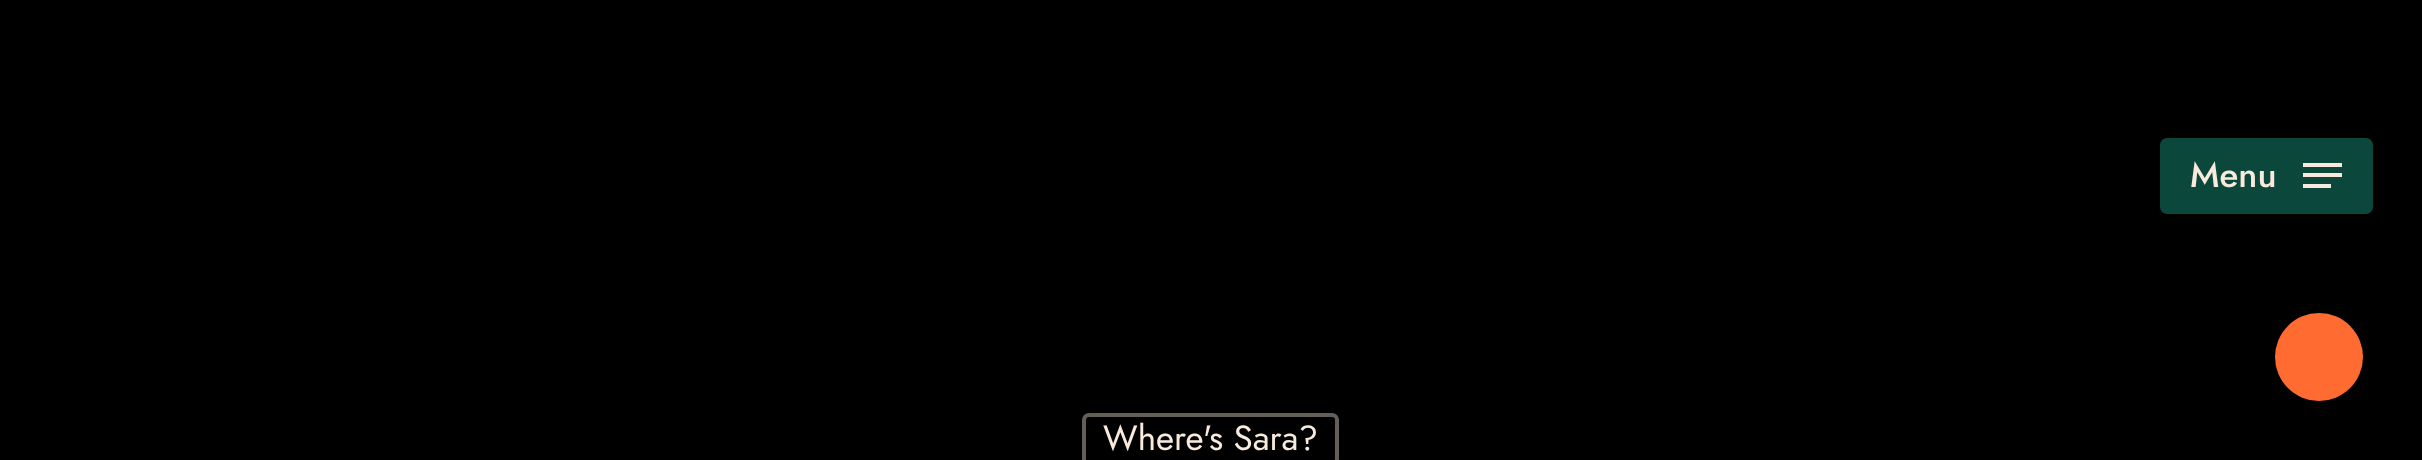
async function draw(canvas) {
  canvas.width = 2422
  canvas.height = 460
  const ctx = canvas.getContext('2d')
  ctx.miterLimit = 4
  ctx.fontKerning = 'normal'

  ctx.fillStyle = '#000'
  ctx.fillRect(0, 0, 2422, 460)
  ctx.fillStyle = '#0b473a'
  ctx.beginPath()
  ctx.roundRect(2160, 138, 213, 76, 7)
  ctx.fill()
  ctx.font = '500 35px Jost'
  ctx.fillStyle = '#f8eadc'
  ctx.fillText('Menu', 2190, 187)
  ctx.fillRect(2303, 163, 39, 4)
  ctx.fillRect(2303, 184, 28, 4)
  ctx.fillRect(2303, 173, 39, 4)
  ctx.fillStyle = '#ff6b30'
  ctx.beginPath()
  ctx.arc(2319, 357, 44, 0, 2 * Math.PI)
  ctx.fill()
  ctx.beginPath()
  ctx.roundRect(1084, 415, 253, 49, 5)
  ctx.strokeStyle = '#635e58'
  ctx.lineWidth = 4
  ctx.stroke()
  ctx.font = '35px Jost'
  ctx.fillStyle = '#f8eadc'
  ctx.fillText('Where\'s Sara?', 1103, 450)
}

draw(document.querySelector('canvas'))
